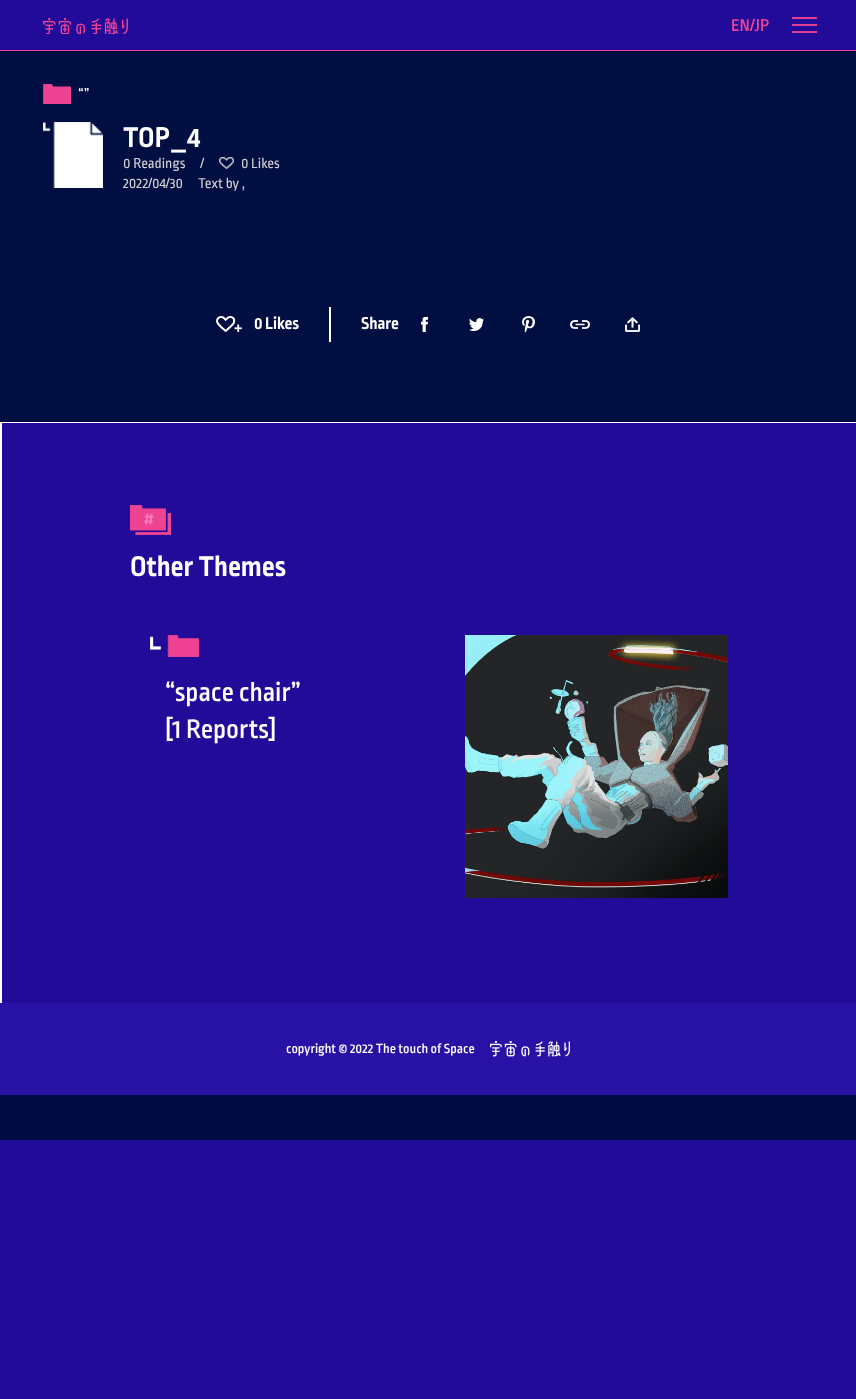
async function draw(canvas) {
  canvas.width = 856
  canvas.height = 1399
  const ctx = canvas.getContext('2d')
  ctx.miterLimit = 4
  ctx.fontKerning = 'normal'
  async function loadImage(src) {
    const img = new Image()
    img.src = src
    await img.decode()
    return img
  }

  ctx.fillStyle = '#210b98'
  ctx.fillRect(0, 0, 856, 1399)
  ctx.fillStyle = '#ee4393'
  ctx.fillRect(0, 50, 856, 1)
  ctx.drawImage(await loadImage('image0.png'), 43, 18, 85, 16)
  ctx.fillStyle = '#e24093'
  ctx.fillRect(792, 17, 25, 2)
  ctx.fillRect(792, 24, 25, 2)
  ctx.fillRect(792, 31, 25, 2)
  ctx.font = '500 18px Ropa Sans'
  ctx.fillStyle = '#ee4393'
  ctx.fillText('EN/JP', 731, 31)
  ctx.fillStyle = '#010e41'
  ctx.fillRect(0, 51, 856, 371)
  ctx.drawImage(await loadImage('image1.png'), 43, 84, 28, 20)
  ctx.font = '16px Ropa Sans'
  ctx.fillStyle = '#fff'
  ctx.fillText('“”', 78, 99)
  ctx.drawImage(await loadImage('image2.png'), 43, 122, 60, 66)
  ctx.font = 'bold 30px Ropa Sans'
  ctx.fillText('TOP_4', 123, 147)
  ctx.font = '15px Ropa Sans'
  ctx.fillStyle = '#d2d2d2'
  ctx.fillText('0 Readings /', 123, 168)
  ctx.drawImage(await loadImage('image3.png'), 219, 157, 15, 12)
  ctx.fillText('0', 241, 168)
  ctx.fillText('Likes', 251, 168)
  ctx.fillText('2022/04/30 Text by ,', 123, 188)
  ctx.drawImage(await loadImage('image4.png'), 216, 316, 26, 16)
  ctx.font = 'bold 18px Ropa Sans'
  ctx.fillStyle = '#fff'
  ctx.fillText('0', 254, 329)
  ctx.fillText('Likes', 265, 329)
  ctx.fillRect(329, 307, 2, 35)
  ctx.fillText('Share', 361, 329)
  ctx.drawImage(await loadImage('image5.png'), 421, 317, 7, 15)
  ctx.drawImage(await loadImage('image6.png'), 469, 318, 15, 13)
  ctx.drawImage(await loadImage('image7.png'), 522, 316, 13, 17)
  ctx.drawImage(await loadImage('image8.png'), 570, 320, 20, 9)
  ctx.drawImage(await loadImage('image9.png'), 625, 317, 15, 15)
  ctx.fillRect(0, 422, 2, 581)
  ctx.fillRect(2, 422, 854, 1)
  ctx.drawImage(await loadImage('image10.png'), 130, 505, 41, 30)
  ctx.font = 'bold 30px Ropa Sans'
  ctx.fillText('Other Themes', 130, 576)
  ctx.drawImage(await loadImage('image11.png'), 150, 635, 49, 22)
  ctx.font = '500 28px Ropa Sans'
  ctx.fillText('“space chair”', 165, 701)
  ctx.fillText('[1 Reports]', 165, 738)
  ctx.drawImage(await loadImage('image12.png'), 465, 635, 263, 263)
  ctx.fillStyle = '#000b42'
  ctx.fillRect(0, 1095, 856, 45)
  ctx.fillStyle = '#2811a5'
  ctx.fillRect(0, 1003, 856, 92)
  ctx.font = '500 14px Ropa Sans'
  ctx.fillStyle = '#fff'
  ctx.fillText('copyright ©︎ 2022 The touch of Space', 286, 1053)
  ctx.drawImage(await loadImage('image13.png'), 490, 1041, 80, 16)
}

draw(document.querySelector('canvas'))
